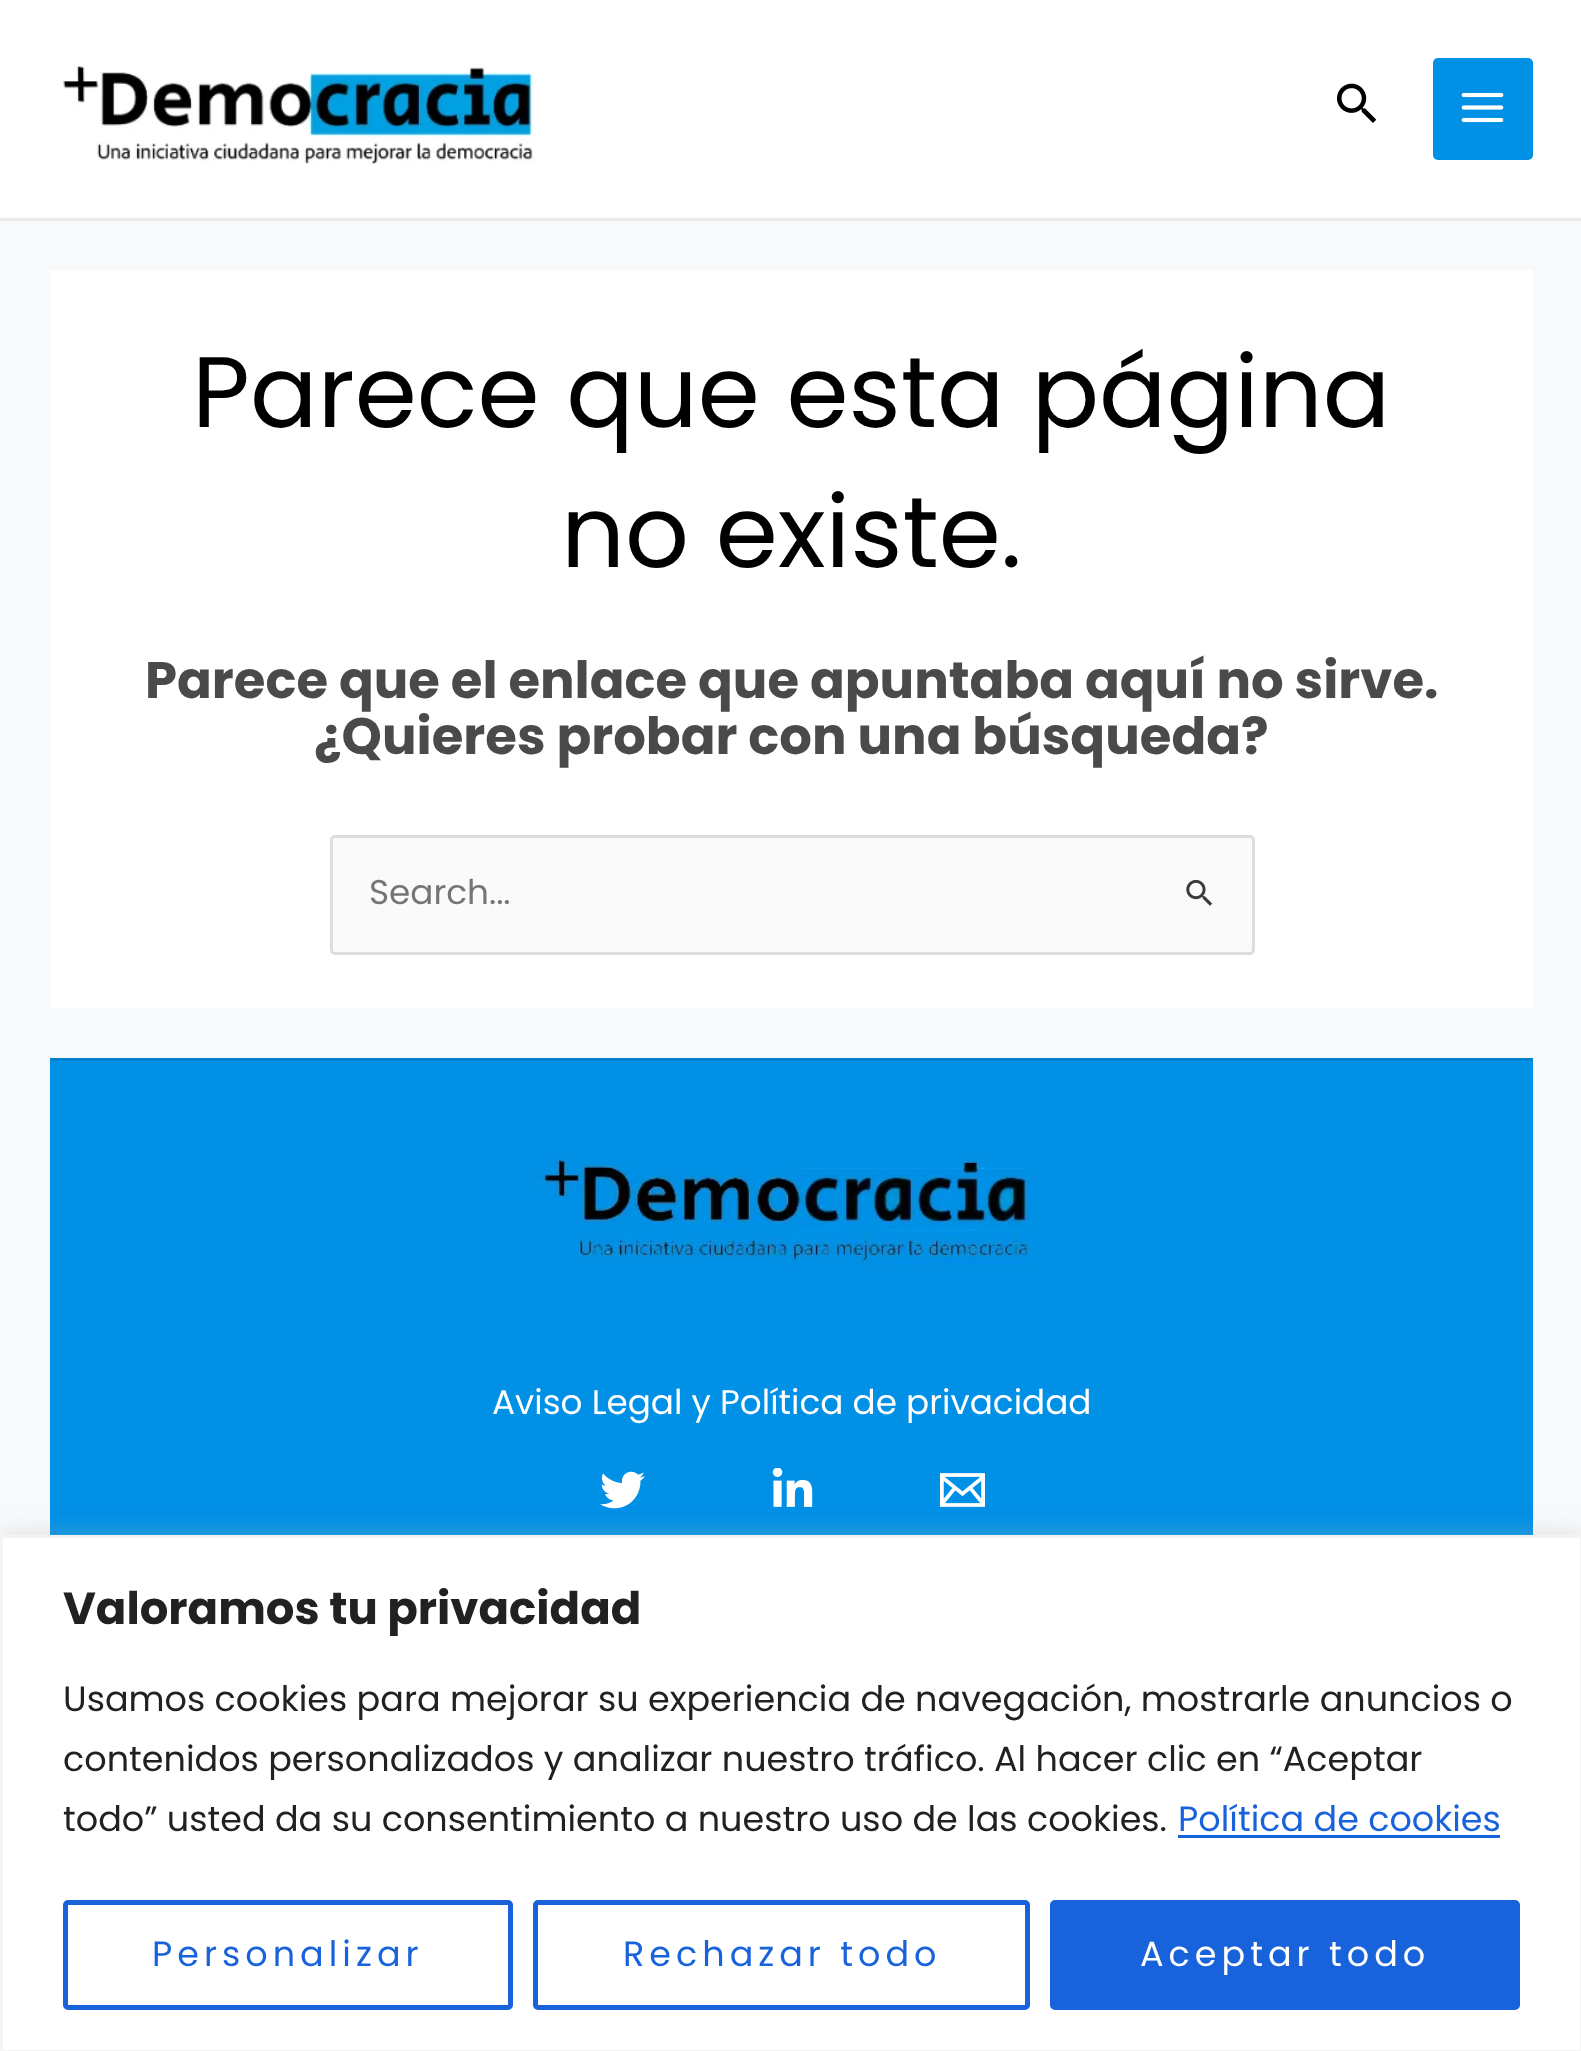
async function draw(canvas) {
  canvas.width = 1581
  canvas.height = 2051
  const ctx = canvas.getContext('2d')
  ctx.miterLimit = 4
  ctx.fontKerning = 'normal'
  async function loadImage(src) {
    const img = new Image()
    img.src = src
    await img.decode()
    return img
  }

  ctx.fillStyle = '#f7f9fb'
  ctx.fillRect(0, 0, 1581, 2051)
  ctx.fillStyle = '#fff'
  ctx.fillRect(0, 0, 1581, 218)
  ctx.fillStyle = '#eaeaea'
  ctx.fillRect(0, 218, 1581, 3)
  ctx.drawImage(await loadImage('image0.png'), 62, 64, 474, 101)
  ctx.drawImage(await loadImage('image1.png'), 1337, 83, 40, 40)
  ctx.fillStyle = '#0090e6'
  ctx.beginPath()
  ctx.roundRect(1433, 58, 100, 102, 5)
  ctx.fill()
  ctx.drawImage(await loadImage('image2.png'), 1461, 92, 43, 31)
  ctx.fillStyle = '#fff'
  ctx.fillRect(50, 270, 1483, 738)
  ctx.font = '100px Poppins'
  ctx.fillStyle = '#000'
  ctx.fillText('Parece que esta página', 192, 427)
  ctx.fillText('no existe.', 561, 567)
  ctx.font = 'bold 51.3px Poppins'
  ctx.fillStyle = '#4a4a4a'
  ctx.fillText('Parece que el enlace que apuntaba aquí no sirve.', 145, 698)
  ctx.fillText('¿Quieres probar con una búsqueda?', 314, 754)
  ctx.fillStyle = '#fafafa'
  ctx.beginPath()
  ctx.roundRect(331.5, 836.5, 922, 117, 3.5)
  ctx.fill()
  ctx.strokeStyle = '#ddd'
  ctx.lineWidth = 3
  ctx.stroke()
  ctx.font = '34.25px Poppins'
  ctx.fillStyle = '#757575'
  ctx.fillText('Search...', 369, 904)
  ctx.drawImage(await loadImage('image3.png'), 1186, 879, 27, 27)
  ctx.fillStyle = '#0090e6'
  ctx.fillRect(50, 1061, 1483, 474)
  ctx.fillStyle = '#0082cf'
  ctx.fillRect(50, 1058, 1483, 3)
  ctx.drawImage(await loadImage('image4.png'), 537, 1155, 496, 111)
  ctx.fillStyle = '#fff'
  ctx.fillText('Aviso Legal y Política de privacidad', 492, 1414)
  ctx.drawImage(await loadImage('image5.png'), 600, 1471, 45, 38)
  ctx.drawImage(await loadImage('image6.png'), 772, 1468, 41, 39)
  ctx.drawImage(await loadImage('image7.png'), 940, 1473, 45, 34)
  ctx.fillStyle = '#acabab4d'
  ctx.filter = 'blur(12.5px)'
  ctx.beginPath()
  ctx.rect(0, 1533, 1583, 517)
  ctx.fill()
  ctx.filter = 'none'
  ctx.fillStyle = '#fff'
  ctx.beginPath()
  ctx.rect(1.5, 1536.5, 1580, 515)
  ctx.fill()
  ctx.strokeStyle = '#f4f4f4'
  ctx.stroke()
  ctx.font = 'bold 45px Poppins'
  ctx.fillStyle = '#212121'
  ctx.fillText('Valoramos tu privacidad', 63, 1624)
  ctx.font = '35px Poppins'
  ctx.fillText('Usamos cookies para mejorar su experiencia de navegación, mostrarle anuncios o', 63, 1711)
  ctx.fillText('contenidos personalizados y analizar nuestro tráfico. Al hacer clic en “Aceptar', 63, 1771)
  ctx.fillText('todo” usted da su consentimiento a nuestro uso de las cookies.', 63, 1831)
  ctx.fillStyle = '#1863dc'
  ctx.fillText('Política de cookies', 1178, 1831)
  ctx.fillRect(1178, 1835, 322, 3)
  ctx.beginPath()
  ctx.roundRect(65.5, 1902.5, 445, 105, 2.5)
  ctx.strokeStyle = '#1863dc'
  ctx.lineWidth = 5
  ctx.stroke()
  ctx.letterSpacing = '5px'
  ctx.fillText('Personalizar', 152, 1966)
  ctx.beginPath()
  ctx.roundRect(535.5, 1902.5, 492, 105, 2.5)
  ctx.stroke()
  ctx.fillText('Rechazar todo', 623, 1966)
  ctx.beginPath()
  ctx.roundRect(1052.5, 1902.5, 465, 105, 2.5)
  ctx.fill()
  ctx.stroke()
  ctx.fillStyle = '#fff'
  ctx.fillText('Aceptar todo', 1140, 1966)
}

draw(document.querySelector('canvas'))
